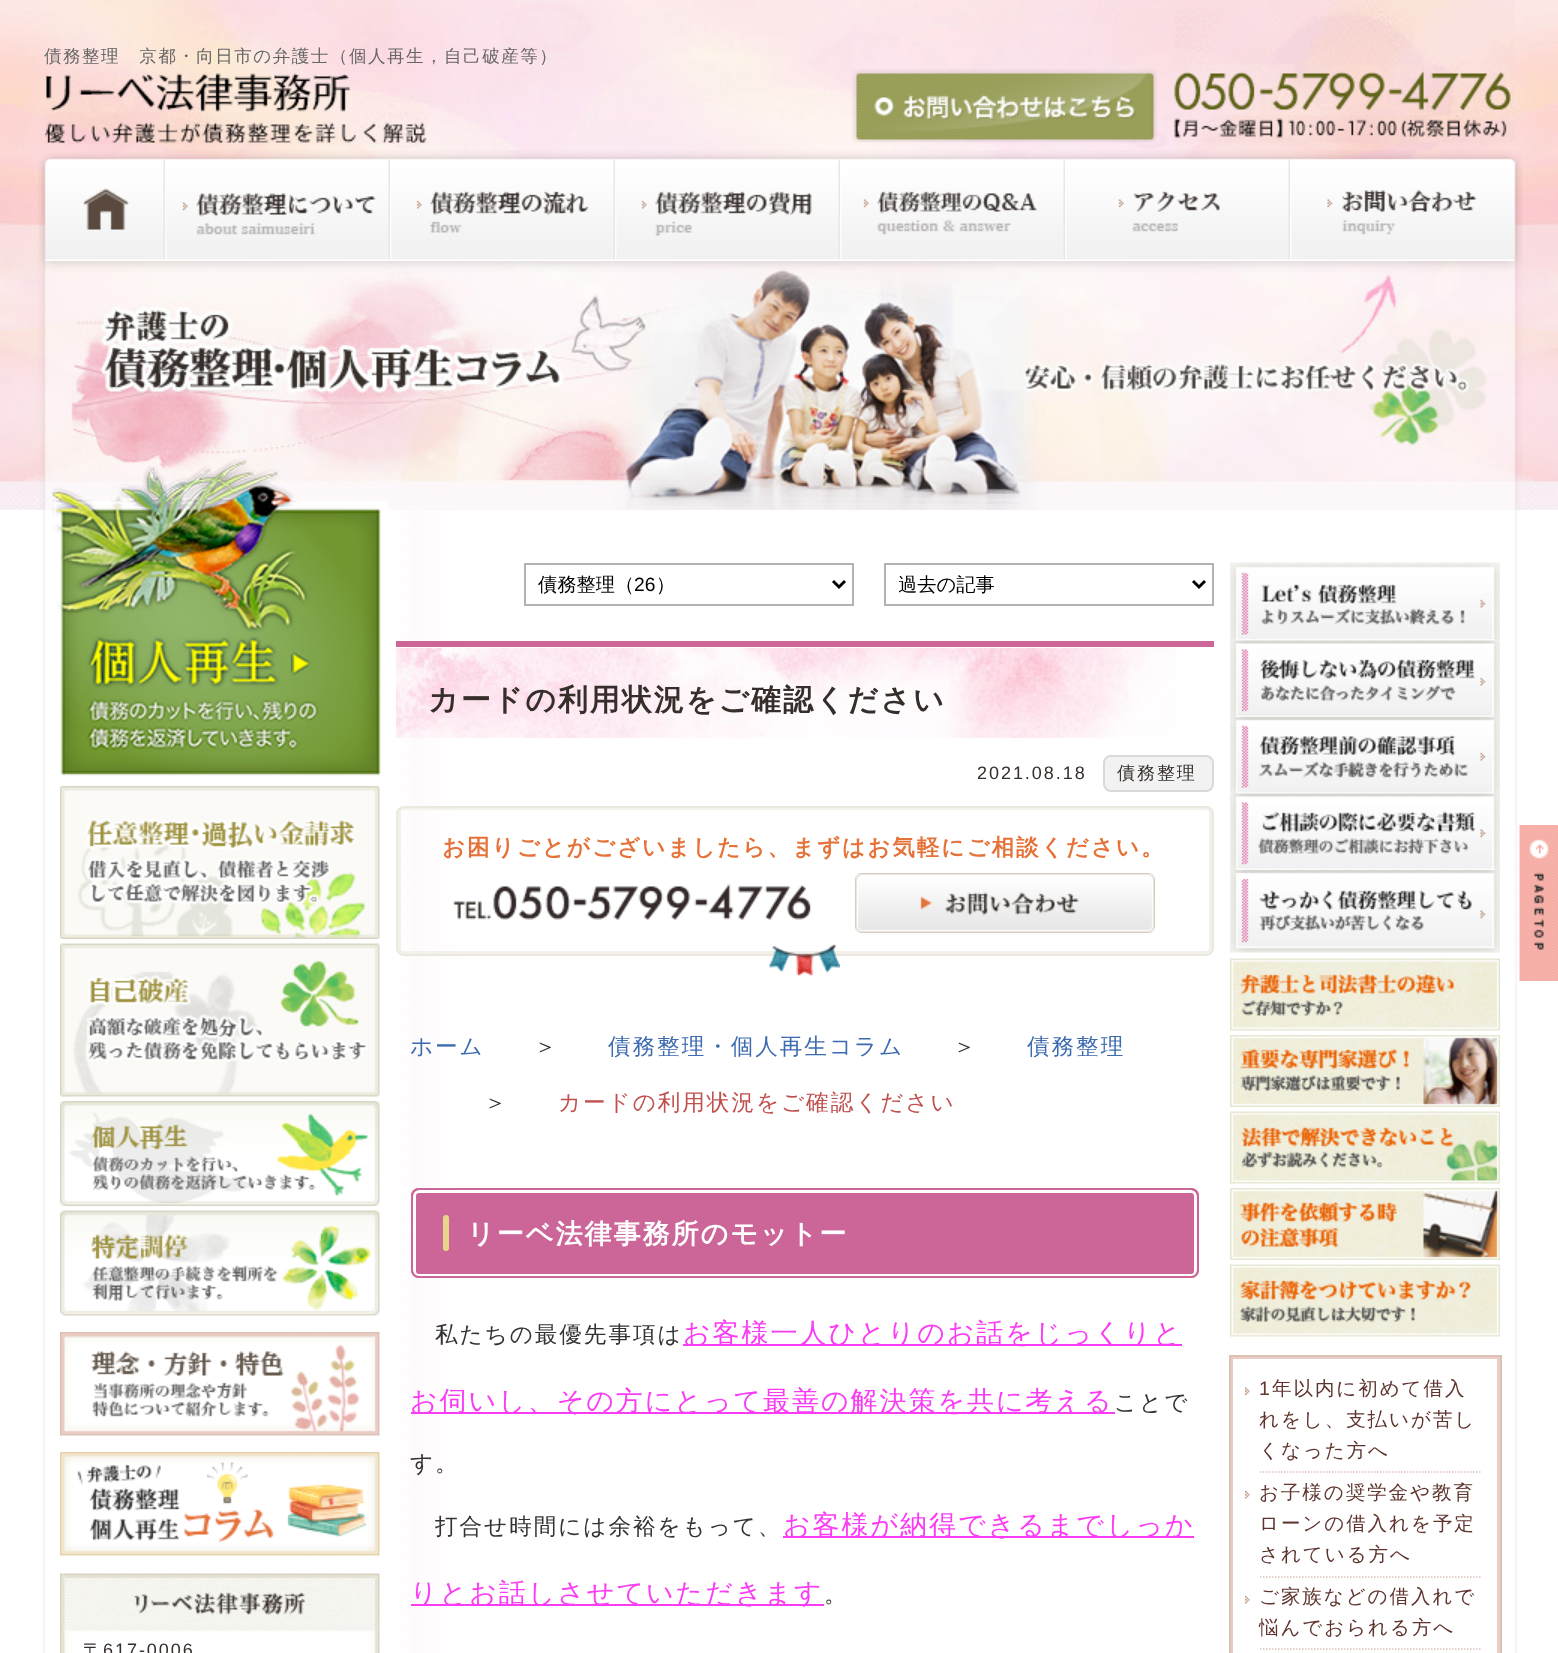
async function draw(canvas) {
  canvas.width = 1558
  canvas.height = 1653
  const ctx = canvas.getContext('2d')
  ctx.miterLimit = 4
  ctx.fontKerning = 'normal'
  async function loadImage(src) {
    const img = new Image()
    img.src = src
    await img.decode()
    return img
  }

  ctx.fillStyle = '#fff'
  ctx.fillRect(0, 0, 1558, 1653)
  ctx.drawImage(await loadImage('image0.png'), 0, 0, 1558, 510)
  ctx.letterSpacing = '1.5px'
  ctx.font = '500 17.55px WenQuanYi Zen Hei'
  ctx.fillStyle = '#666'
  ctx.fillText('債務整理　京都・向日市の弁護士（個人再生，自己破産等）', 44, 62)
  ctx.drawImage(await loadImage('image1.png'), 45, 72, 383, 72)
  ctx.drawImage(await loadImage('image2.png'), 852, 69, 305, 74)
  ctx.drawImage(await loadImage('image3.png'), 1174, 0, 341, 143)
  ctx.drawImage(await loadImage('image12.png'), 37, 261, 1486, 249)
  ctx.drawImage(await loadImage('image13.png'), 42, 510, 1476, 1143)
  ctx.drawImage(await loadImage('image4.png'), 52, 458, 336, 318)
  ctx.drawImage(await loadImage('image5.png'), 38, 152, 127, 109)
  ctx.drawImage(await loadImage('image6.png'), 165, 150, 225, 111)
  ctx.drawImage(await loadImage('image7.png'), 390, 150, 225, 111)
  ctx.drawImage(await loadImage('image8.png'), 615, 150, 225, 111)
  ctx.drawImage(await loadImage('image9.png'), 840, 150, 225, 111)
  ctx.drawImage(await loadImage('image10.png'), 1065, 150, 225, 111)
  ctx.drawImage(await loadImage('image11.png'), 1290, 150, 233, 111)
  ctx.strokeStyle = '#b3b3b3'
  ctx.lineWidth = 2
  ctx.strokeRect(525, 564, 328, 41)
  ctx.beginPath()
  ctx.moveTo(833, 581)
  ctx.lineTo(839, 587)
  ctx.lineTo(845, 581)
  ctx.strokeStyle = '#000'
  ctx.lineWidth = 3
  ctx.stroke()
  ctx.letterSpacing = '0px'
  ctx.font = '500 19.25px WenQuanYi Zen Hei'
  ctx.fillStyle = '#000'
  ctx.fillText('債務整理（', 538, 591)
  ctx.font = '19.25px Liberation Sans'
  ctx.fillText('26', 634, 591)
  ctx.font = '500 19.25px WenQuanYi Zen Hei'
  ctx.fillText('）', 656, 591)
  ctx.strokeStyle = '#b3b3b3'
  ctx.lineWidth = 2
  ctx.strokeRect(885, 564, 328, 41)
  ctx.beginPath()
  ctx.moveTo(1193, 581)
  ctx.lineTo(1199, 587)
  ctx.lineTo(1205, 581)
  ctx.strokeStyle = '#000'
  ctx.lineWidth = 3
  ctx.stroke()
  ctx.save()
  ctx.beginPath()
  ctx.rect(899, 572, 282, 25)
  ctx.clip()
  ctx.fillText('過去の記事', 898, 591)
  ctx.restore()
  ctx.drawImage(await loadImage('image14.png'), 396, 648, 780, 90)
  ctx.fillStyle = '#c69'
  ctx.fillRect(396, 641, 818, 6)
  ctx.letterSpacing = '1.95px'
  ctx.font = 'bold 30px WenQuanYi Zen Hei'
  ctx.fillStyle = '#362e2b'
  ctx.fillText('カードの利用状況をご確認ください', 428, 710)
  ctx.font = '18px Liberation Sans'
  ctx.fillText('2021.08.18', 977, 779)
  ctx.fillStyle = '#f2f2f2'
  ctx.beginPath()
  ctx.roundRect(1104, 756, 109, 35, 7)
  ctx.fill()
  ctx.strokeStyle = '#d9d9d9'
  ctx.lineWidth = 2
  ctx.stroke()
  ctx.font = '500 18px WenQuanYi Zen Hei'
  ctx.fillStyle = '#362e2b'
  ctx.fillText('債務整理', 1117, 779)
  ctx.beginPath()
  ctx.roundRect(399.5, 808.5, 811, 144, 4.5)
  ctx.strokeStyle = '#f3f1e9'
  ctx.lineWidth = 3
  ctx.stroke()
  ctx.beginPath()
  ctx.roundRect(397, 807, 816, 148, 7)
  ctx.strokeStyle = '#ebe9de'
  ctx.lineWidth = 2
  ctx.stroke()
  ctx.font = 'bold 22.6px WenQuanYi Zen Hei'
  ctx.fillStyle = '#e57339'
  ctx.fillText('お困りごとがございましたら、まずはお気軽にご相談ください。', 442, 855)
  ctx.drawImage(await loadImage('image15.png'), 453, 883, 358, 37)
  ctx.drawImage(await loadImage('image16.png'), 855, 873, 300, 60)
  ctx.drawImage(await loadImage('image17.png'), 769, 944, 71, 32)
  ctx.font = '500 22.6px WenQuanYi Zen Hei'
  ctx.fillStyle = '#3d6bb0'
  ctx.fillText('ホーム', 410, 1054)
  ctx.fillStyle = '#362e2b'
  ctx.fillText('＞', 534, 1054)
  ctx.fillStyle = '#3d6bb0'
  ctx.fillText('債務整理・個人再生コラム', 608, 1054)
  ctx.fillStyle = '#362e2b'
  ctx.fillText('＞', 953, 1054)
  ctx.fillStyle = '#3d6bb0'
  ctx.fillText('債務整理', 1027, 1054)
  ctx.fillStyle = '#362e2b'
  ctx.fillText('＞', 484, 1110)
  ctx.fillStyle = '#c0504d'
  ctx.fillText('カードの利用状況をご確認ください', 558, 1110)
  ctx.fillStyle = '#c69'
  ctx.beginPath()
  ctx.roundRect(411, 1188, 788, 90, 8)
  ctx.fill()
  ctx.beginPath()
  ctx.roundRect(414.5, 1191.5, 781, 84, 4.5)
  ctx.strokeStyle = '#fff'
  ctx.lineWidth = 3
  ctx.stroke()
  ctx.beginPath()
  ctx.roundRect(412, 1189, 786, 88, 7)
  ctx.strokeStyle = '#c69'
  ctx.lineWidth = 2
  ctx.stroke()
  ctx.fillStyle = '#e6d68a'
  ctx.beginPath()
  ctx.roundRect(443, 1215, 6, 36, 3)
  ctx.fill()
  ctx.font = 'bold 27.1px WenQuanYi Zen Hei'
  ctx.fillStyle = '#fff'
  ctx.fillText('リーベ法律事務所のモットー', 467, 1243)
  ctx.font = '500 22.6px WenQuanYi Zen Hei'
  ctx.fillStyle = '#333'
  ctx.fillText('私たちの最優先事項は', 435, 1342)
  ctx.fillStyle = '#fb3cf5'
  ctx.fillRect(683, 1344, 499, 2)
  ctx.font = '500 27px WenQuanYi Zen Hei'
  ctx.fillText('お客様一人ひとりのお話をじっくりと', 683, 1342)
  ctx.fillRect(411, 1412, 704, 2)
  ctx.fillText('お伺いし、その方にとって最善の解決策を共に考える', 410, 1410)
  ctx.font = '500 22.6px WenQuanYi Zen Hei'
  ctx.fillStyle = '#333'
  ctx.fillText('ことで', 1114, 1410)
  ctx.fillText('す。', 410, 1471)
  ctx.fillText('打合せ時間には余裕をもって、', 435, 1534)
  ctx.fillStyle = '#fb3cf5'
  ctx.fillRect(783, 1536, 411, 2)
  ctx.font = '500 27px WenQuanYi Zen Hei'
  ctx.fillText('お客様が納得できるまでしっか', 783, 1534)
  ctx.fillRect(411, 1604, 413, 2)
  ctx.fillText('りとお話しさせていただきます', 410, 1602)
  ctx.font = '500 22.6px WenQuanYi Zen Hei'
  ctx.fillStyle = '#333'
  ctx.fillText('。', 824, 1602)
  ctx.drawImage(await loadImage('image18.png'), 1230, 562, 270, 79)
  ctx.drawImage(await loadImage('image19.png'), 1230, 640, 270, 77)
  ctx.drawImage(await loadImage('image20.png'), 1230, 717, 270, 77)
  ctx.drawImage(await loadImage('image21.png'), 1230, 793, 270, 77)
  ctx.drawImage(await loadImage('image22.png'), 1230, 870, 270, 83)
  ctx.drawImage(await loadImage('image23.png'), 1230, 958, 270, 73)
  ctx.drawImage(await loadImage('image24.png'), 1230, 1035, 270, 72)
  ctx.drawImage(await loadImage('image25.png'), 1230, 1111, 270, 73)
  ctx.drawImage(await loadImage('image26.png'), 1230, 1188, 270, 72)
  ctx.drawImage(await loadImage('image27.png'), 1230, 1264, 270, 73)
  ctx.strokeStyle = '#eacdc5'
  ctx.lineWidth = 3
  ctx.strokeRect(1231.5, 1357.5, 267, 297)
  ctx.beginPath()
  ctx.moveTo(1260, 1472)
  ctx.lineTo(1482, 1472)
  ctx.strokeStyle = '#dec1b6'
  ctx.lineWidth = 1.5
  ctx.setLineDash([1.5, 1.5])
  ctx.stroke()
  ctx.drawImage(await loadImage('image28.png'), 1245, 1387, 5, 8)
  ctx.beginPath()
  ctx.moveTo(1260, 1577)
  ctx.lineTo(1482, 1577)
  ctx.stroke()
  ctx.drawImage(await loadImage('image29.png'), 1245, 1491, 5, 8)
  ctx.beginPath()
  ctx.moveTo(1260, 1649)
  ctx.lineTo(1482, 1649)
  ctx.stroke()
  ctx.drawImage(await loadImage('image29.png'), 1245, 1596, 5, 8)
  ctx.lineWidth = 2
  ctx.setLineDash([])
  ctx.strokeRect(1230, 1356, 271, 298)
  ctx.font = '19.5px Liberation Sans'
  ctx.fillStyle = '#5f342e'
  ctx.fillText('1', 1259, 1395)
  ctx.font = '500 19.5px WenQuanYi Zen Hei'
  ctx.fillText('年以内に初めて借入', 1272, 1395)
  ctx.fillText('れをし、支払いが苦し', 1259, 1426)
  ctx.fillText('くなった方へ', 1259, 1457)
  ctx.fillText('お子様の奨学金や教育', 1259, 1499)
  ctx.fillText('ローンの借入れを予定', 1259, 1530)
  ctx.fillText('されている方へ', 1259, 1561)
  ctx.fillText('ご家族などの借入れで', 1259, 1603)
  ctx.fillText('悩んでおられる方へ', 1259, 1634)
  ctx.drawImage(await loadImage('image30.png'), 60, 786, 320, 153)
  ctx.drawImage(await loadImage('image31.png'), 60, 943, 320, 154)
  ctx.drawImage(await loadImage('image32.png'), 60, 1101, 320, 105)
  ctx.drawImage(await loadImage('image33.png'), 60, 1210, 320, 106)
  ctx.drawImage(await loadImage('image34.png'), 60, 1332, 320, 104)
  ctx.drawImage(await loadImage('image35.png'), 60, 1452, 320, 104)
  ctx.drawImage(await loadImage('image36.png'), 60, 1573, 320, 80)
  ctx.font = '500 18px WenQuanYi Zen Hei'
  ctx.fillStyle = '#362e2b'
  ctx.fillText('〒', 83, 1656)
  ctx.font = '18px Liberation Sans'
  ctx.fillText('617-0006', 103, 1656)
  ctx.drawImage(await loadImage('image37.png'), 1519, 825, 39, 156)
}

draw(document.querySelector('canvas'))
